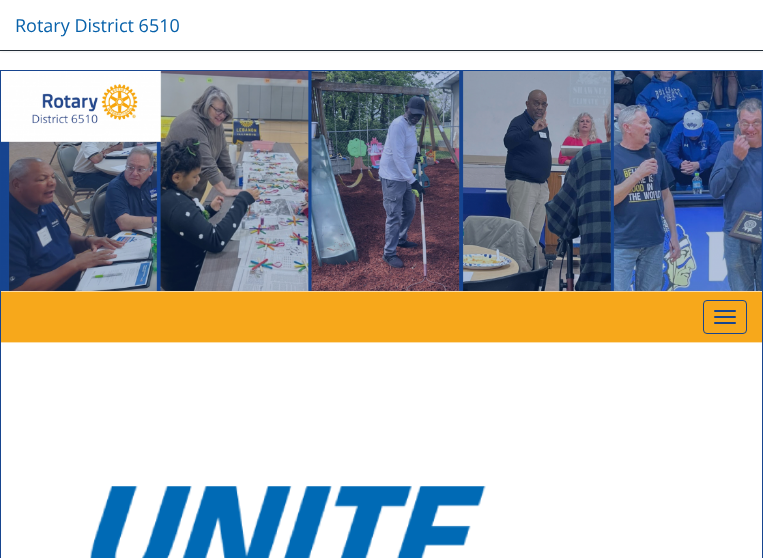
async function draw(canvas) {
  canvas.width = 763
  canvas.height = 558
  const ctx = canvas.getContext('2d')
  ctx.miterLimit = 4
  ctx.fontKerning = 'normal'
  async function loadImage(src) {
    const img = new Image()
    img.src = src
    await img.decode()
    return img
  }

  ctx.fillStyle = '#fff'
  ctx.fillRect(0, 0, 763, 558)
  ctx.save()
  ctx.beginPath()
  ctx.rect(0, 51, 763, 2)
  ctx.clip()
  ctx.fillStyle = '#00000012'
  ctx.filter = 'blur(2.5px)'
  ctx.beginPath()
  ctx.rect(0, 1, 763, 51)
  ctx.fill()
  ctx.filter = 'none'
  ctx.restore()
  ctx.fillStyle = '#242e38'
  ctx.fillRect(0, 50, 763, 1)
  ctx.font = '18px Open Sans'
  ctx.fillStyle = '#0761aa'
  ctx.fillText('Rotary District 6510', 15, 32)
  ctx.strokeStyle = '#17458f'
  ctx.strokeRect(0.5, 70.5, 762, 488)
  ctx.drawImage(await loadImage('image0.png'), 1, 71, 761, 220)
  ctx.fillStyle = '#f7a81b'
  ctx.fillRect(1, 292, 761, 50)
  ctx.fillStyle = '#fcdea8'
  ctx.fillRect(1, 291, 761, 1)
  ctx.fillRect(1, 342, 761, 1)
  ctx.beginPath()
  ctx.roundRect(703.5, 300.5, 43, 33, 3.5)
  ctx.stroke()
  ctx.fillStyle = '#17458f'
  ctx.beginPath()
  ctx.roundRect(714, 310, 22, 2, 1)
  ctx.fill()
  ctx.beginPath()
  ctx.roundRect(714, 316, 22, 2, 1)
  ctx.fill()
  ctx.beginPath()
  ctx.roundRect(714, 322, 22, 2, 1)
  ctx.fill()
  ctx.drawImage(await loadImage('image1.png'), 90, 486, 396, 72)
}

draw(document.querySelector('canvas'))
